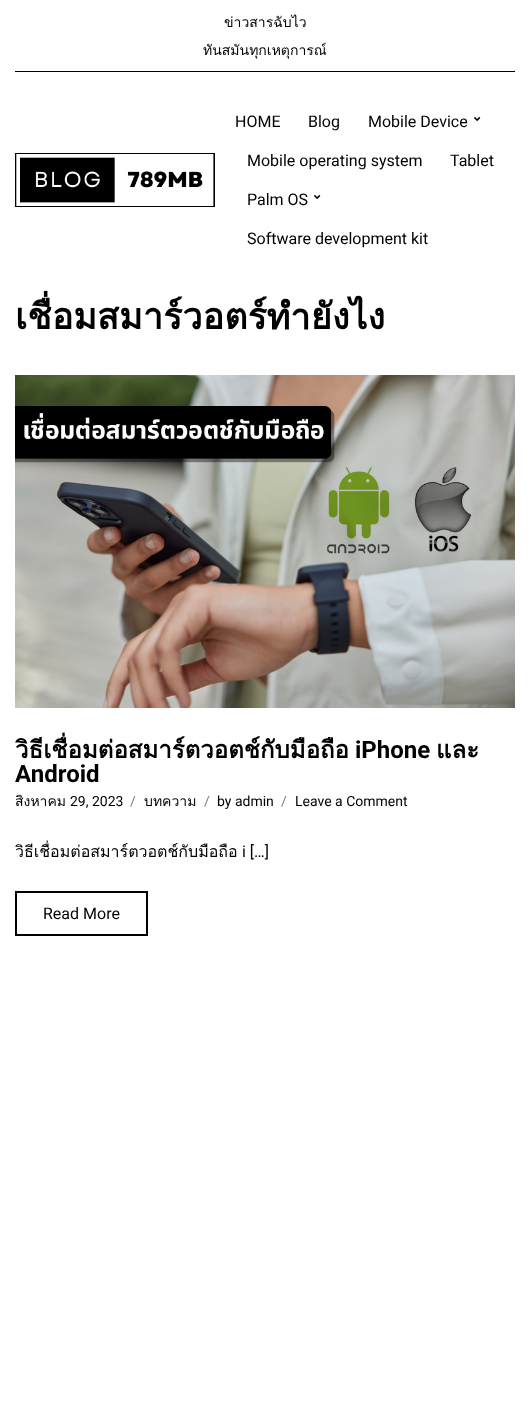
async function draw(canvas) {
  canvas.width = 530
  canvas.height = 1401
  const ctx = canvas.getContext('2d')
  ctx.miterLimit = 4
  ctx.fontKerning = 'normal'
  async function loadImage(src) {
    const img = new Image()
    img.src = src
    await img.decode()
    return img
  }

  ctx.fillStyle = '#fff'
  ctx.fillRect(0, 0, 530, 1401)
  ctx.font = '14px Loma'
  ctx.fillStyle = '#000'
  ctx.fillText('ข่าวสารฉับไว', 224, 27)
  ctx.fillText('ทันสมันทุกเหตุการณ์', 203, 55)
  ctx.fillRect(15, 71, 500, 1)
  ctx.drawImage(await loadImage('image0.png'), 15, 153, 200, 54)
  ctx.font = '16px Roboto'
  ctx.fillText('HOME', 235, 127)
  ctx.fillText('Blog', 308, 127)
  ctx.fillText('Mobile Device', 368, 127)
  ctx.drawImage(await loadImage('image1.png'), 474, 117, 7, 4)
  ctx.fillText('Mobile operating system', 247, 166)
  ctx.fillText('Tablet', 450, 166)
  ctx.fillText('Palm OS', 247, 205)
  ctx.drawImage(await loadImage('image1.png'), 314, 195, 7, 4)
  ctx.fillText('Software development kit', 247, 244)
  ctx.font = 'bold 36px Loma'
  ctx.fillText('เชื่อมสมาร์วอตร์ทำยังไง', 15, 329)
  ctx.drawImage(await loadImage('image2.png'), 15, 375, 500, 333)
  ctx.font = 'bold 24px Loma'
  ctx.fillText('วิธีเชื่อมต่อสมาร์ตวอตช์กับมือถือ', 15, 758)
  ctx.font = 'bold 24px Roboto'
  ctx.fillText('iPhone', 355, 758)
  ctx.font = 'bold 24px Loma'
  ctx.fillText('และ', 436, 758)
  ctx.font = 'bold 24px Roboto'
  ctx.fillText('Android', 15, 782)
  ctx.font = '14px Loma'
  ctx.fillText('สิงหาคม', 15, 806)
  ctx.font = '14px Roboto'
  ctx.fillText('29, 2023', 70, 806)
  ctx.fillStyle = '#808080'
  ctx.fillText('/', 130, 806)
  ctx.font = '14px Loma'
  ctx.fillStyle = '#000'
  ctx.fillText('บทความ', 144, 806)
  ctx.font = '14px Roboto'
  ctx.fillStyle = '#808080'
  ctx.fillText('/', 204, 806)
  ctx.fillStyle = '#000'
  ctx.fillText('by admin', 217, 806)
  ctx.fillStyle = '#808080'
  ctx.fillText('/', 281, 806)
  ctx.fillStyle = '#000'
  ctx.fillText('Leave a Comment', 295, 806)
  ctx.font = '16px Loma'
  ctx.fillText('วิธีเชื่อมต่อสมาร์ตวอตช์กับมือถือ', 15, 857)
  ctx.font = '16px Roboto'
  ctx.fillText('i […]', 242, 857)
  ctx.strokeStyle = '#000'
  ctx.lineWidth = 2
  ctx.strokeRect(16, 892, 131, 43)
  ctx.fillText('Read More', 43, 919)
}

draw(document.querySelector('canvas'))
